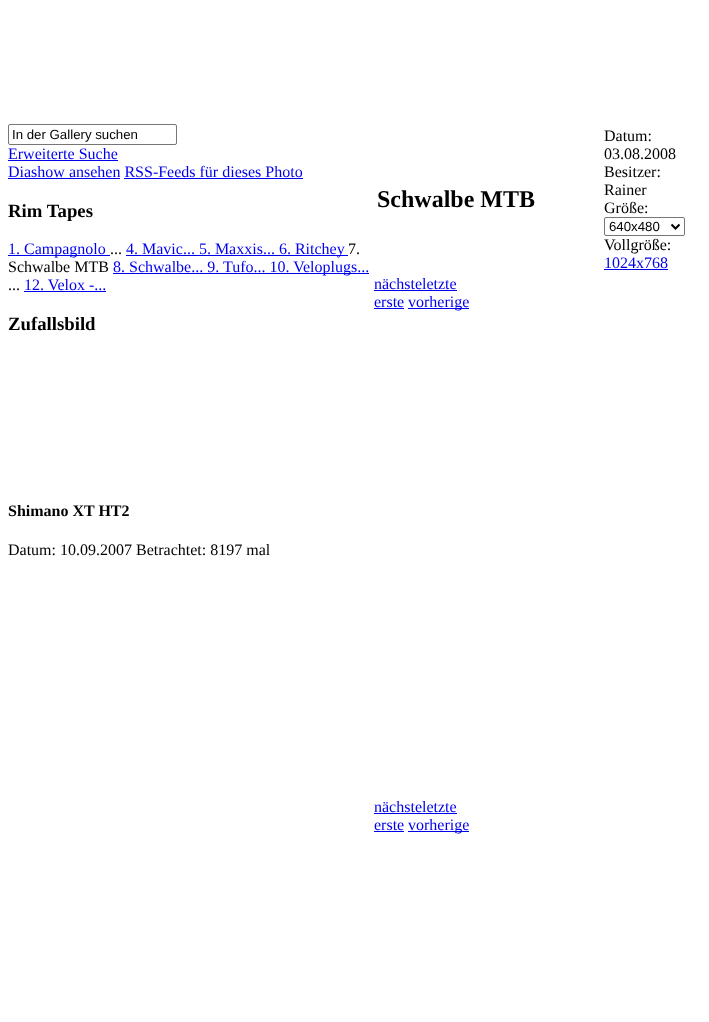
async function draw(canvas) {
  canvas.width = 709
  canvas.height = 1022
  const ctx = canvas.getContext('2d')
  ctx.miterLimit = 4
  ctx.fontKerning = 'normal'

  ctx.fillStyle = '#fff'
  ctx.fillRect(0, 0, 709, 1022)
  ctx.beginPath()
  ctx.roundRect(8.5, 124.5, 168, 20, 1.5)
  ctx.strokeStyle = '#767676'
  ctx.stroke()
  ctx.font = '13.25px Liberation Sans'
  ctx.fillStyle = '#000'
  ctx.fillText('In der Gallery suchen', 12, 139)
  ctx.font = '16px Liberation Serif'
  ctx.fillStyle = '#00e'
  ctx.fillText('Erweiterte Suche', 8, 159)
  ctx.fillRect(8, 160, 110, 1)
  ctx.fillText('Diashow ansehen RSS-Feeds für dieses Photo', 8, 177)
  ctx.fillRect(8, 178, 112, 1)
  ctx.fillRect(124, 178, 179, 1)
  ctx.font = 'bold 18.75px Liberation Serif'
  ctx.fillStyle = '#000'
  ctx.fillText('Rim Tapes', 8, 217)
  ctx.fillStyle = '#00e'
  ctx.fillRect(8, 255, 102, 1)
  ctx.font = '16px Liberation Serif'
  ctx.fillText('1. Campagnolo', 8, 254)
  ctx.fillStyle = '#000'
  ctx.fillText('...', 110, 254)
  ctx.fillStyle = '#00e'
  ctx.fillRect(126, 255, 222, 1)
  ctx.fillText('4. Mavic... 5. Maxxis... 6. Ritchey', 126, 254)
  ctx.fillStyle = '#000'
  ctx.fillText('7.', 348, 254)
  ctx.fillText('Schwalbe MTB', 8, 272)
  ctx.fillStyle = '#00e'
  ctx.fillRect(113, 273, 256, 1)
  ctx.fillText('8. Schwalbe... 9. Tufo... 10. Veloplugs...', 113, 272)
  ctx.fillStyle = '#000'
  ctx.fillText('...', 8, 290)
  ctx.fillStyle = '#00e'
  ctx.fillText('12. Velox -...', 24, 290)
  ctx.fillRect(24, 291, 82, 1)
  ctx.font = 'bold 18.75px Liberation Serif'
  ctx.fillStyle = '#000'
  ctx.fillText('Zufallsbild', 8, 330)
  ctx.font = 'bold 16px Liberation Serif'
  ctx.fillText('Shimano XT HT2', 8, 516)
  ctx.font = '16px Liberation Serif'
  ctx.fillText('Datum: 10.09.2007 Betrachtet: 8197 mal', 8, 555)
  ctx.font = 'bold 24px Liberation Serif'
  ctx.fillText('Schwalbe MTB', 377, 207)
  ctx.font = '16px Liberation Serif'
  ctx.fillText('Datum:', 604, 141)
  ctx.fillText('03.08.2008', 604, 159)
  ctx.fillText('Besitzer:', 604, 177)
  ctx.fillText('Rainer', 604, 195)
  ctx.fillText('Größe:', 604, 213)
  ctx.beginPath()
  ctx.roundRect(604.5, 217.5, 80, 18, 1.5)
  ctx.stroke()
  ctx.beginPath()
  ctx.moveTo(671.5, 224.5)
  ctx.lineTo(675.5, 228.5)
  ctx.lineTo(679.5, 224.5)
  ctx.strokeStyle = '#000'
  ctx.lineWidth = 2
  ctx.stroke()
  ctx.font = '13.25px Liberation Sans'
  ctx.fillText('640x480', 609, 231)
  ctx.font = '16px Liberation Serif'
  ctx.fillText('Vollgröße:', 604, 250)
  ctx.fillStyle = '#00e'
  ctx.fillText('1024x768', 604, 268)
  ctx.fillRect(604, 269, 64, 1)
  ctx.fillText('nächsteletzte', 374, 289)
  ctx.fillRect(374, 290, 83, 1)
  ctx.fillText('erste', 374, 307)
  ctx.fillRect(374, 308, 30, 1)
  ctx.fillRect(408, 308, 61, 1)
  ctx.fillText('vorherige', 408, 307)
  ctx.fillText('nächsteletzte', 374, 812)
  ctx.fillRect(374, 813, 83, 1)
  ctx.fillText('erste', 374, 830)
  ctx.fillRect(374, 831, 30, 1)
  ctx.fillRect(408, 831, 61, 1)
  ctx.fillText('vorherige', 408, 830)
}

draw(document.querySelector('canvas'))
